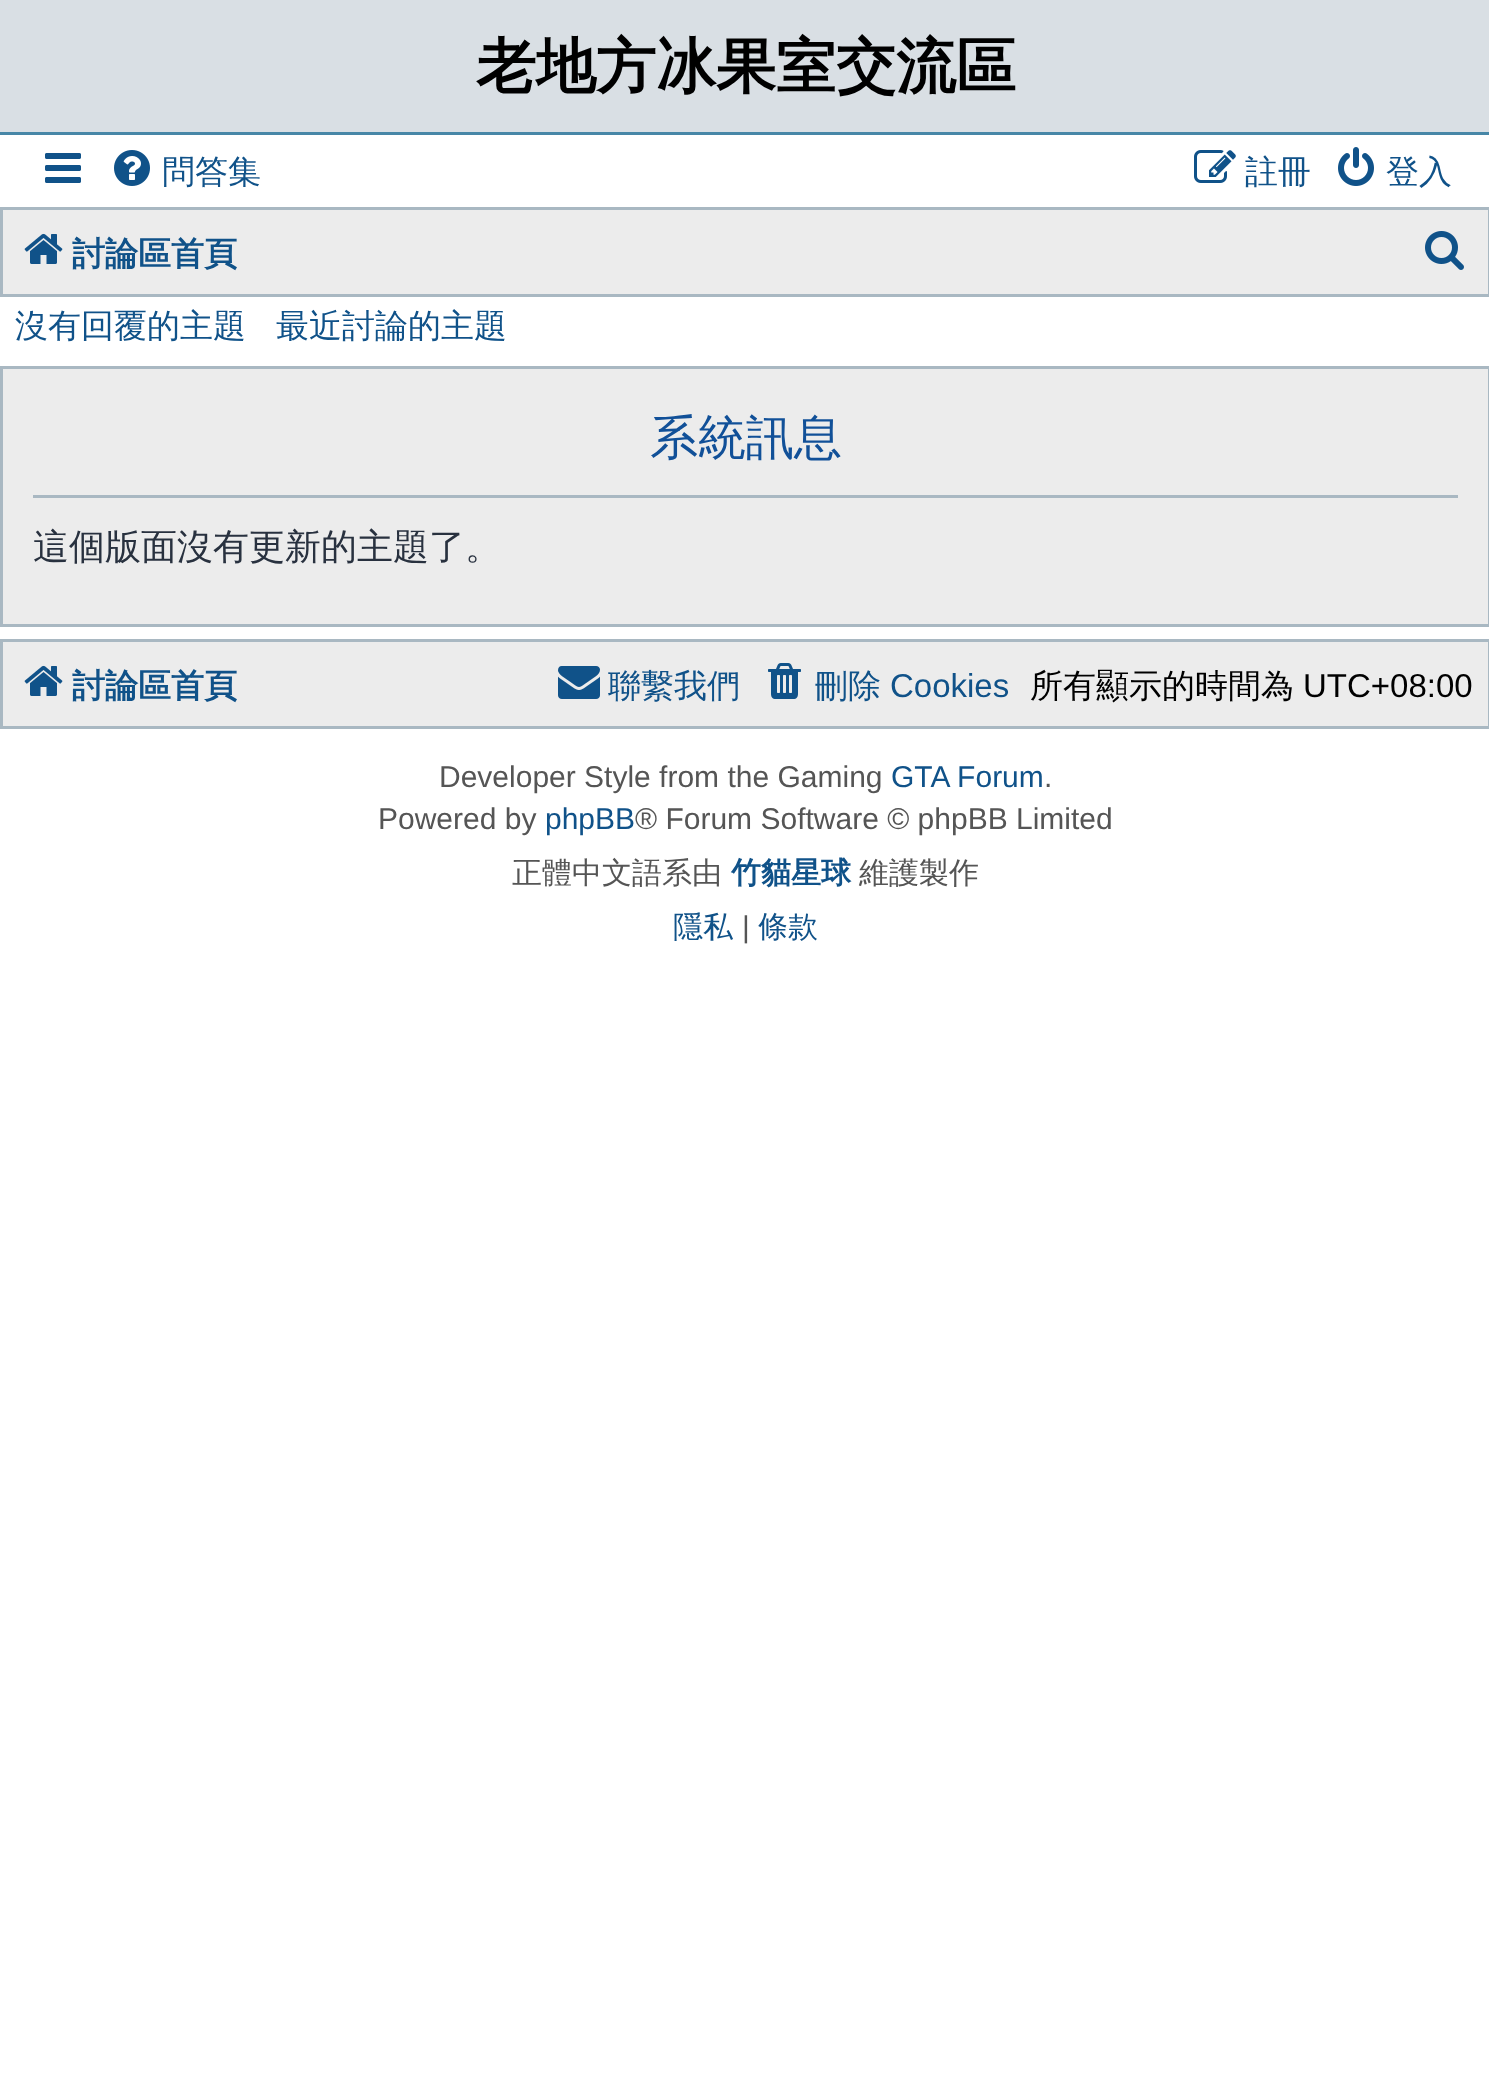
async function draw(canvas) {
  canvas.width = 1489
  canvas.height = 2080
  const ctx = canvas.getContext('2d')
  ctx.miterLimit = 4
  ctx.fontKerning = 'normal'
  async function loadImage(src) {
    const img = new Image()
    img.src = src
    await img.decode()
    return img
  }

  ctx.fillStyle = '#fff'
  ctx.fillRect(0, 0, 1489, 2080)
  ctx.fillStyle = '#d9dfe4'
  ctx.fillRect(0, 0, 1489, 132)
  ctx.fillStyle = '#4787a7'
  ctx.fillRect(0, 132, 1489, 3)
  ctx.font = 'bold 60px WenQuanYi Zen Hei'
  ctx.fillStyle = '#000'
  ctx.fillText('老地方冰果室交流區', 476, 87)
  ctx.drawImage(await loadImage('image0.png'), 45, 153, 36, 30)
  ctx.drawImage(await loadImage('image1.png'), 114, 150, 36, 36)
  ctx.font = '500 33px WenQuanYi Zen Hei'
  ctx.fillStyle = '#105289'
  ctx.fillText('問答集', 162, 183)
  ctx.drawImage(await loadImage('image2.png'), 1194, 150, 42, 33)
  ctx.fillText('註冊', 1245, 183)
  ctx.drawImage(await loadImage('image3.png'), 1338, 147, 36, 39)
  ctx.fillText('登入', 1386, 183)
  ctx.fillStyle = '#ececec'
  ctx.beginPath()
  ctx.rect(1.5, 208.5, 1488, 87)
  ctx.fill()
  ctx.strokeStyle = '#a9b8c2'
  ctx.lineWidth = 3
  ctx.stroke()
  ctx.drawImage(await loadImage('image4.png'), 24, 233, 39, 31)
  ctx.font = 'bold 33px WenQuanYi Zen Hei'
  ctx.fillStyle = '#105289'
  ctx.fillText('討論區首頁', 72, 265)
  ctx.drawImage(await loadImage('image5.png'), 1425, 231, 39, 39)
  ctx.font = '500 33px WenQuanYi Zen Hei'
  ctx.fillText('沒有回覆的主題', 15, 337)
  ctx.fillText('最近討論的主題', 276, 337)
  ctx.fillStyle = '#ececec'
  ctx.beginPath()
  ctx.rect(1.5, 367.5, 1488, 258)
  ctx.fill()
  ctx.stroke()
  ctx.fillStyle = '#a9b8c2'
  ctx.fillRect(33, 495, 1425, 3)
  ctx.font = '500 48px WenQuanYi Zen Hei'
  ctx.fillStyle = '#115098'
  ctx.fillText('系統訊息', 650, 454)
  ctx.font = '500 36px WenQuanYi Zen Hei'
  ctx.fillStyle = '#28313f'
  ctx.fillText('這個版面沒有更新的主題了。', 33, 559)
  ctx.fillStyle = '#ececec'
  ctx.beginPath()
  ctx.rect(1.5, 640.5, 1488, 87)
  ctx.fill()
  ctx.stroke()
  ctx.drawImage(await loadImage('image4.png'), 24, 665, 39, 31)
  ctx.font = 'bold 33px WenQuanYi Zen Hei'
  ctx.fillStyle = '#105289'
  ctx.fillText('討論區首頁', 72, 697)
  ctx.drawImage(await loadImage('image6.png'), 558, 666, 42, 33)
  ctx.font = '500 33px WenQuanYi Zen Hei'
  ctx.fillText('聯繫我們', 608, 697)
  ctx.drawImage(await loadImage('image7.png'), 768, 663, 33, 36)
  ctx.fillText('刪除', 815, 697)
  ctx.font = '33px Liberation Sans'
  ctx.fillText('Cookies', 890, 697)
  ctx.font = '500 33px WenQuanYi Zen Hei'
  ctx.fillStyle = '#000'
  ctx.fillText('所有顯示的時間為', 1030, 697)
  ctx.font = '33px Liberation Sans'
  ctx.fillText('UTC+08:00', 1303, 697)
  ctx.font = '30px Liberation Sans'
  ctx.fillStyle = '#555'
  ctx.fillText('Developer Style from the Gaming', 439, 787)
  ctx.fillStyle = '#105289'
  ctx.fillText('GTA Forum', 891, 787)
  ctx.fillStyle = '#555'
  ctx.fillText('.', 1044, 787)
  ctx.fillText('Powered by', 378, 829)
  ctx.fillStyle = '#105289'
  ctx.fillText('phpBB', 545, 829)
  ctx.fillStyle = '#555'
  ctx.fillText('® Forum Software © phpBB Limited', 635, 829)
  ctx.font = '500 30px WenQuanYi Zen Hei'
  ctx.fillText('正體中文語系由', 512, 883)
  ctx.font = 'bold 30px WenQuanYi Zen Hei'
  ctx.fillStyle = '#105289'
  ctx.fillText('竹貓星球', 731, 883)
  ctx.font = '500 30px WenQuanYi Zen Hei'
  ctx.fillStyle = '#555'
  ctx.fillText('維護製作', 859, 883)
  ctx.fillStyle = '#105289'
  ctx.fillText('隱私', 673, 937)
  ctx.font = '30px Liberation Sans'
  ctx.fillStyle = '#555'
  ctx.fillText('|', 742, 937)
  ctx.font = '500 30px WenQuanYi Zen Hei'
  ctx.fillStyle = '#105289'
  ctx.fillText('條款', 758, 937)
}

draw(document.querySelector('canvas'))
